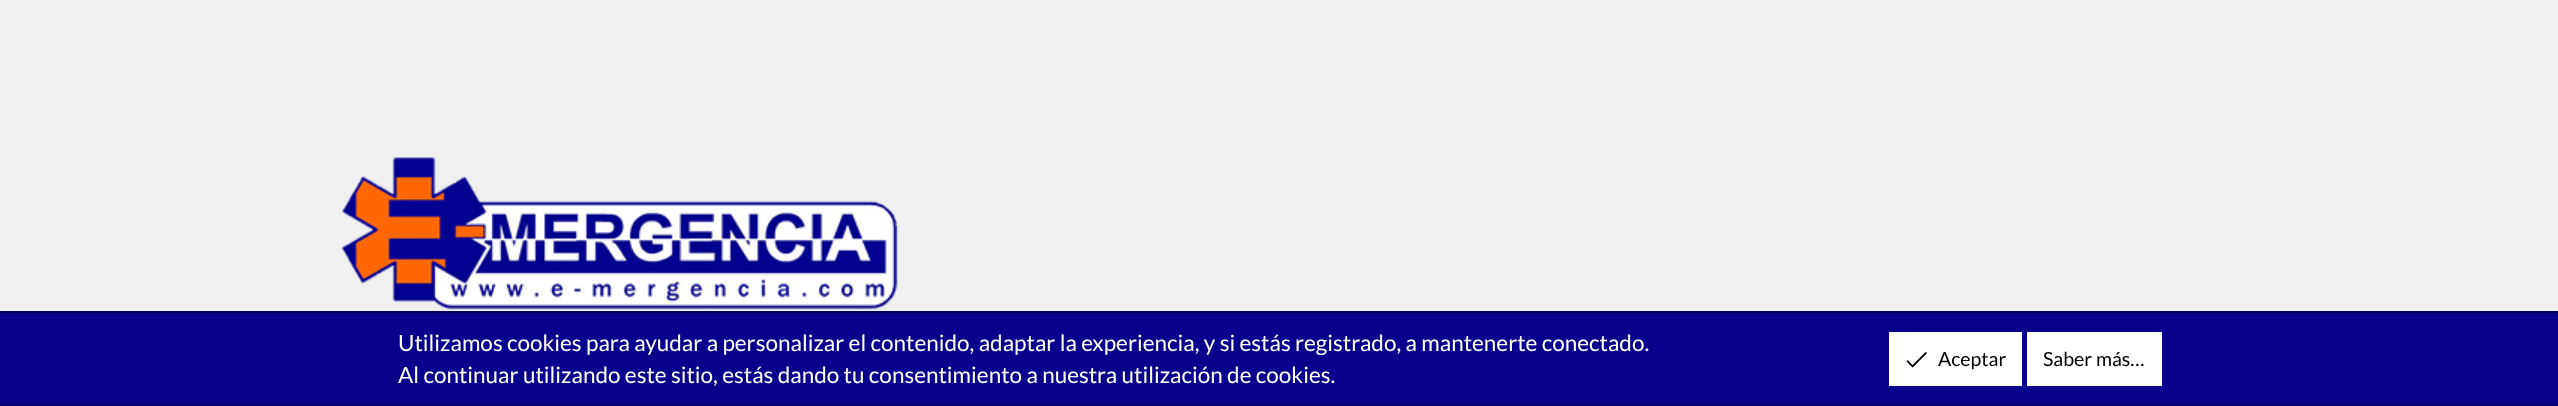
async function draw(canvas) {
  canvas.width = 2558
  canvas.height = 406
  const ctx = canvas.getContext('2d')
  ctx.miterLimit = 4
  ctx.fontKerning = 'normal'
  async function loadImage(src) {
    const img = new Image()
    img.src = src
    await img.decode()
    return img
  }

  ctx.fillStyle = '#f0f0f0'
  ctx.fillRect(0, 0, 2558, 406)
  ctx.drawImage(await loadImage('image0.png'), 341, 157, 557, 153)
  ctx.fillStyle = '#09008c'
  ctx.fillRect(0, 313, 2558, 92)
  ctx.fillStyle = '#060059'
  ctx.fillRect(0, 311, 2558, 2)
  ctx.fillRect(0, 405, 2558, 1)
  ctx.font = '22.5px Lato'
  ctx.fillStyle = '#fff'
  ctx.fillText('Utilizamos cookies para ayudar a personalizar el contenido, adaptar la experiencia, y si estás registrado, a mantenerte conectado.', 398, 351)
  ctx.fillText('Al continuar utilizando este sitio, estás dando tu consentimiento a nuestra utilización de cookies.', 398, 383)
  ctx.fillRect(1889, 332, 133, 54)
  ctx.drawImage(await loadImage('image1.png'), 1906, 352, 21, 16)
  ctx.font = '19.5px Lato'
  ctx.fillStyle = '#000'
  ctx.fillText('Aceptar', 1938, 366)
  ctx.fillStyle = '#fff'
  ctx.fillRect(2027, 332, 135, 54)
  ctx.fillStyle = '#000'
  ctx.fillText('Saber más…', 2043, 366)
}

draw(document.querySelector('canvas'))
